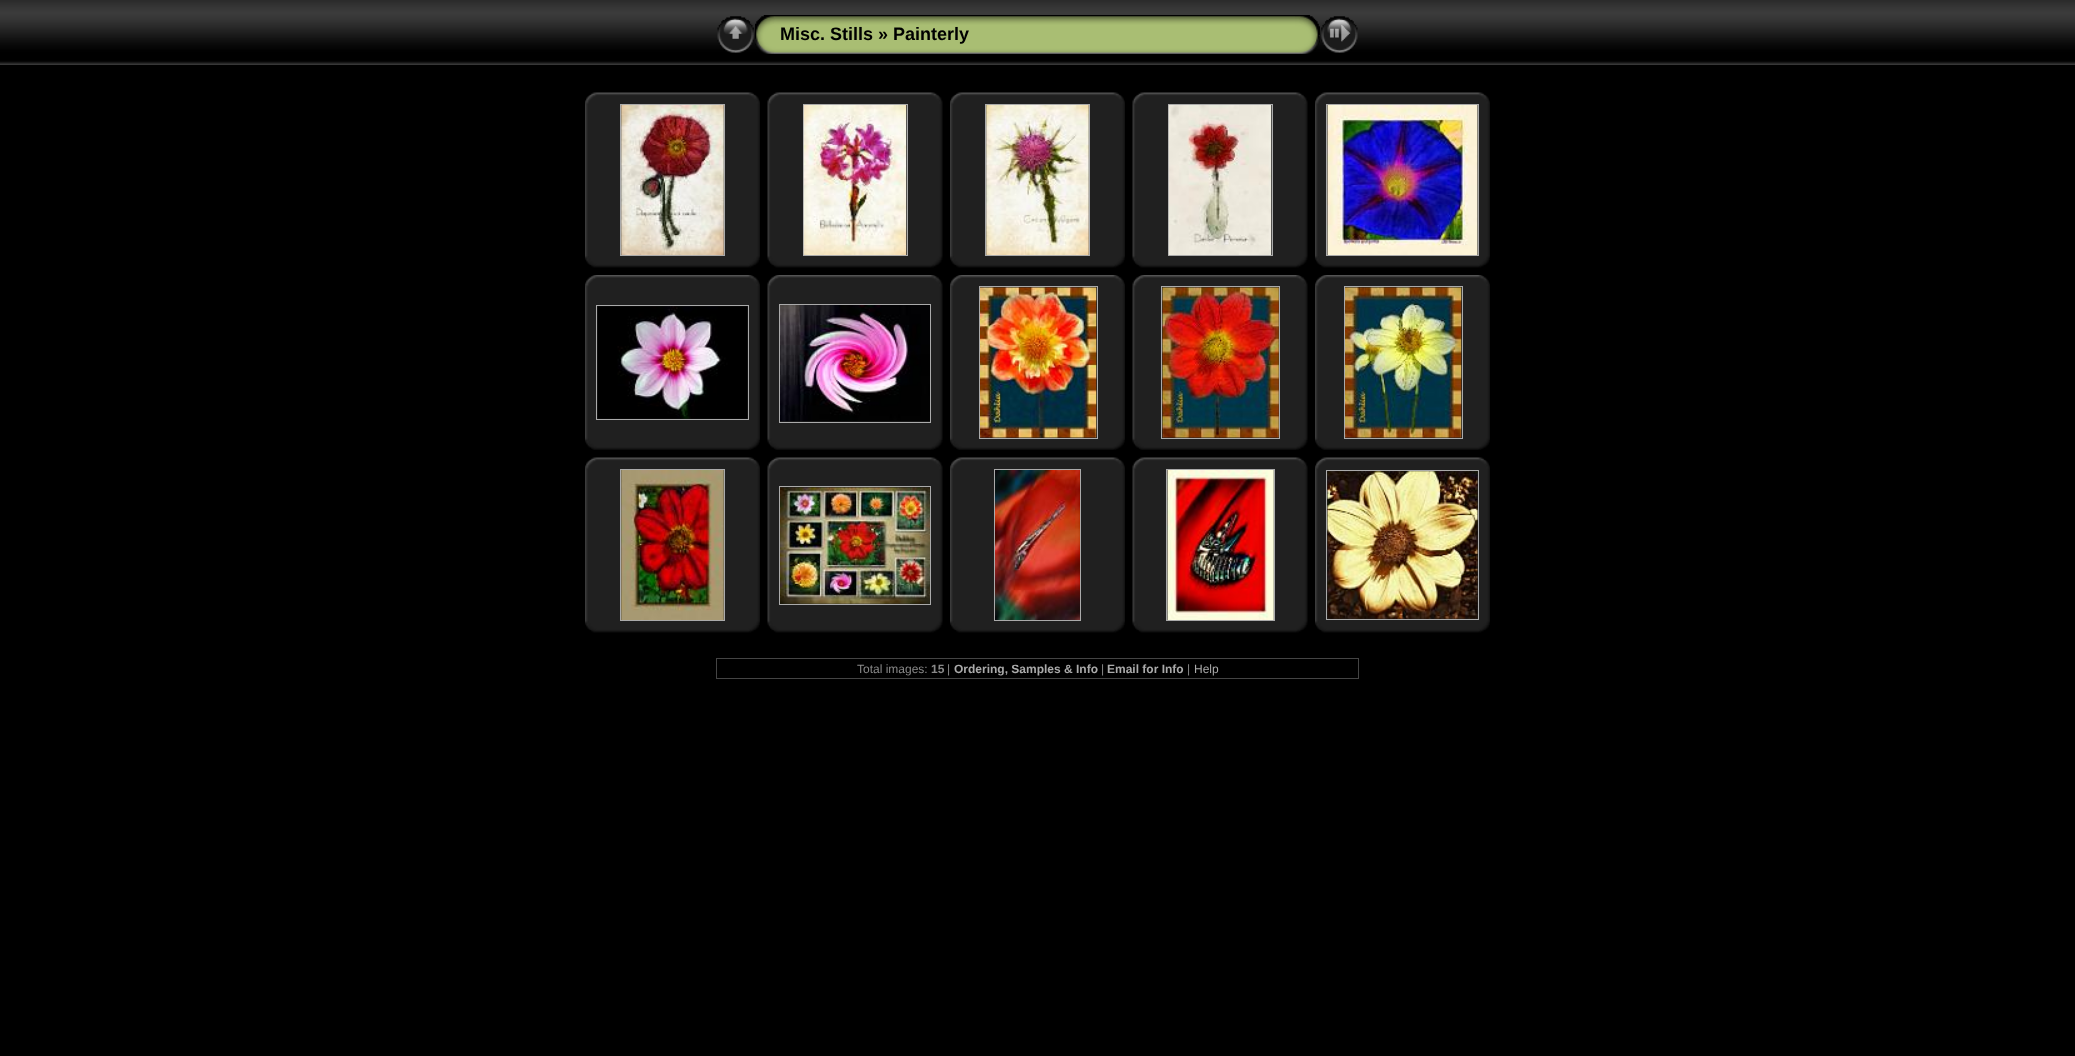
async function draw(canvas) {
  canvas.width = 2075
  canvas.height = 1056
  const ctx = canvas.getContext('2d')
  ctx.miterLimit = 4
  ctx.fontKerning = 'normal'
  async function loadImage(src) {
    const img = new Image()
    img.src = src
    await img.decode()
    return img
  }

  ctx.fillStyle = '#000'
  ctx.fillRect(0, 0, 2075, 1056)
  ctx.drawImage(await loadImage('image0.png'), 0, 0, 2075, 65)
  ctx.drawImage(await loadImage('image1.png'), 717, 16, 37, 37)
  ctx.drawImage(await loadImage('image2.png'), 755, 15, 25, 39)
  ctx.drawImage(await loadImage('image3.png'), 780, 15, 515, 39)
  ctx.font = 'bold 18px Liberation Sans'
  ctx.fillText('Misc. Stills » Painterly', 780, 40)
  ctx.drawImage(await loadImage('image4.png'), 1295, 15, 25, 39)
  ctx.drawImage(await loadImage('image5.png'), 1321, 16, 37, 37)
  ctx.drawImage(await loadImage('image6.png'), 585, 92, 175, 176)
  ctx.strokeStyle = '#aaa'
  ctx.strokeRect(620.5, 104.5, 104, 151)
  ctx.drawImage(await loadImage('image7.png'), 621, 105, 103, 150)
  ctx.drawImage(await loadImage('image8.png'), 767, 92, 176, 176)
  ctx.strokeRect(803.5, 104.5, 104, 151)
  ctx.drawImage(await loadImage('image9.png'), 803, 105, 104, 150)
  ctx.drawImage(await loadImage('image6.png'), 950, 92, 175, 176)
  ctx.strokeRect(985.5, 104.5, 104, 151)
  ctx.drawImage(await loadImage('image10.png'), 986, 105, 103, 150)
  ctx.drawImage(await loadImage('image11.png'), 1132, 92, 176, 176)
  ctx.strokeRect(1168.5, 104.5, 104, 151)
  ctx.drawImage(await loadImage('image12.png'), 1168, 105, 104, 150)
  ctx.drawImage(await loadImage('image13.png'), 1315, 92, 175, 176)
  ctx.strokeRect(1326.5, 104.5, 152, 151)
  ctx.drawImage(await loadImage('image14.png'), 1327, 105, 151, 150)
  ctx.drawImage(await loadImage('image15.png'), 585, 275, 175, 175)
  ctx.strokeRect(596.5, 305.5, 152, 114)
  ctx.drawImage(await loadImage('image16.png'), 597, 306, 151, 113)
  ctx.drawImage(await loadImage('image17.png'), 767, 275, 176, 175)
  ctx.strokeRect(779.5, 304.5, 151, 118)
  ctx.drawImage(await loadImage('image18.png'), 780, 305, 150, 117)
  ctx.drawImage(await loadImage('image15.png'), 950, 275, 175, 175)
  ctx.strokeRect(979.5, 286.5, 118, 152)
  ctx.drawImage(await loadImage('image19.png'), 980, 287, 117, 151)
  ctx.drawImage(await loadImage('image20.png'), 1132, 275, 176, 175)
  ctx.strokeRect(1161.5, 286.5, 118, 152)
  ctx.drawImage(await loadImage('image21.png'), 1162, 287, 117, 151)
  ctx.drawImage(await loadImage('image22.png'), 1315, 275, 175, 175)
  ctx.strokeRect(1344.5, 286.5, 118, 152)
  ctx.drawImage(await loadImage('image23.png'), 1345, 287, 117, 151)
  ctx.drawImage(await loadImage('image6.png'), 585, 457, 175, 176)
  ctx.strokeRect(620.5, 469.5, 104, 151)
  ctx.drawImage(await loadImage('image24.png'), 621, 470, 103, 150)
  ctx.drawImage(await loadImage('image8.png'), 767, 457, 176, 176)
  ctx.strokeRect(779.5, 486.5, 151, 118)
  ctx.drawImage(await loadImage('image25.png'), 780, 487, 150, 117)
  ctx.drawImage(await loadImage('image6.png'), 950, 457, 175, 176)
  ctx.strokeRect(994.5, 469.5, 86, 151)
  ctx.drawImage(await loadImage('image26.png'), 995, 470, 85, 150)
  ctx.drawImage(await loadImage('image11.png'), 1132, 457, 176, 176)
  ctx.strokeRect(1166.5, 469.5, 108, 151)
  ctx.drawImage(await loadImage('image27.png'), 1167, 470, 107, 150)
  ctx.drawImage(await loadImage('image13.png'), 1315, 457, 175, 176)
  ctx.strokeRect(1326.5, 470.5, 152, 149)
  ctx.drawImage(await loadImage('image28.png'), 1327, 471, 151, 148)
  ctx.fillStyle = '#444'
  ctx.fillRect(716, 658, 643, 1)
  ctx.fillRect(1358, 658, 1, 21)
  ctx.fillRect(716, 678, 643, 1)
  ctx.fillRect(716, 658, 1, 21)
  ctx.font = '12px Liberation Sans'
  ctx.fillStyle = '#888'
  ctx.fillText('Total images:', 857, 673)
  ctx.font = 'bold 12px Liberation Sans'
  ctx.fillText('15', 931, 673)
  ctx.font = '12px Liberation Sans'
  ctx.fillText('|', 947, 673)
  ctx.font = 'bold 12px Liberation Sans'
  ctx.fillStyle = '#aaa'
  ctx.fillText('Ordering, Samples & Info', 954, 673)
  ctx.font = '12px Liberation Sans'
  ctx.fillStyle = '#888'
  ctx.fillText('|', 1101, 673)
  ctx.font = 'bold 12px Liberation Sans'
  ctx.fillStyle = '#aaa'
  ctx.fillText('Email for Info', 1107, 673)
  ctx.font = '12px Liberation Sans'
  ctx.fillStyle = '#888'
  ctx.fillText('|', 1187, 673)
  ctx.fillStyle = '#aaa'
  ctx.fillText('Help', 1194, 673)
}

draw(document.querySelector('canvas'))
